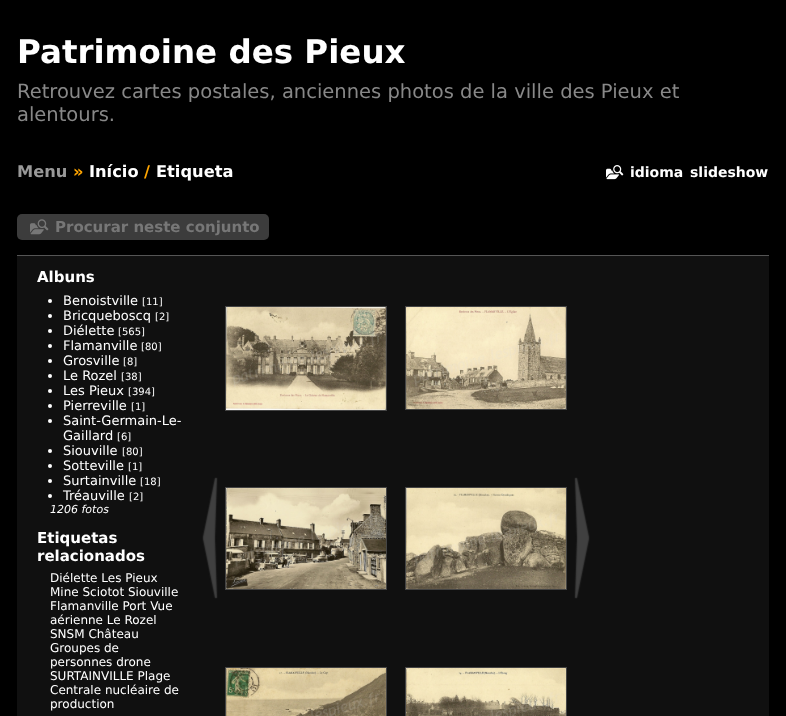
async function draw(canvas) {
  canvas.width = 786
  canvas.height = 716
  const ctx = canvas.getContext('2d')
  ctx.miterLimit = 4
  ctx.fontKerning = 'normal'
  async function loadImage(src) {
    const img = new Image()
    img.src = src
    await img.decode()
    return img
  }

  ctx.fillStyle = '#000'
  ctx.fillRect(0, 0, 786, 716)
  ctx.font = 'bold 32.5px DejaVu Sans'
  ctx.fillStyle = '#fff'
  ctx.fillText('Patrimoine des Pieux', 17, 63)
  ctx.font = '19.5px DejaVu Sans'
  ctx.fillStyle = '#888'
  ctx.fillText('Retrouvez cartes postales, anciennes photos de la ville des Pieux et', 17, 98)
  ctx.fillText('alentours.', 17, 121)
  ctx.font = 'bold 16.25px DejaVu Sans'
  ctx.fillStyle = '#999'
  ctx.fillText('Menu', 17, 177)
  ctx.fillStyle = '#ffa500'
  ctx.fillText('»', 73, 177)
  ctx.fillStyle = '#fff'
  ctx.fillText('Início', 89, 177)
  ctx.fillStyle = '#ffa500'
  ctx.fillText('/', 144, 177)
  ctx.fillStyle = '#fff'
  ctx.fillText('Etiqueta', 156, 177)
  ctx.drawImage(await loadImage('image0.png'), 606, 165, 18, 15)
  ctx.font = 'bold 14px DejaVu Sans'
  ctx.fillText('idioma', 630, 177)
  ctx.fillText('slideshow', 690, 177)
  ctx.fillStyle = '#3c3c3c'
  ctx.beginPath()
  ctx.roundRect(17, 214, 252, 26, 5)
  ctx.fill()
  ctx.drawImage(await loadImage('image1.png'), 30, 219, 19, 16)
  ctx.font = 'bold 15px DejaVu Sans'
  ctx.fillStyle = '#777'
  ctx.fillText('Procurar neste conjunto', 55, 232)
  ctx.fillStyle = '#101010'
  ctx.fillRect(17, 256, 752, 460)
  ctx.fillStyle = '#555'
  ctx.fillRect(17, 255, 752, 1)
  ctx.fillStyle = '#fff'
  ctx.fillText('Albuns', 37, 282)
  ctx.beginPath()
  ctx.arc(50, 301, 2, 0, 2 * Math.PI)
  ctx.fill()
  ctx.font = '13px DejaVu Sans'
  ctx.fillText('Benoistville', 63, 305)
  ctx.font = '10px DejaVu Sans'
  ctx.fillText('[11]', 142, 305)
  ctx.beginPath()
  ctx.arc(50, 316, 2, 0, 2 * Math.PI)
  ctx.fill()
  ctx.font = '13px DejaVu Sans'
  ctx.fillText('Bricqueboscq', 63, 320)
  ctx.font = '10px DejaVu Sans'
  ctx.fillText('[2]', 155, 320)
  ctx.beginPath()
  ctx.arc(50, 331, 2, 0, 2 * Math.PI)
  ctx.fill()
  ctx.font = '13px DejaVu Sans'
  ctx.fillText('Diélette', 63, 335)
  ctx.font = '10px DejaVu Sans'
  ctx.fillText('[565]', 118, 335)
  ctx.beginPath()
  ctx.arc(50, 346, 2, 0, 2 * Math.PI)
  ctx.fill()
  ctx.font = '13px DejaVu Sans'
  ctx.fillText('Flamanville', 63, 350)
  ctx.font = '10px DejaVu Sans'
  ctx.fillText('[80]', 141, 350)
  ctx.beginPath()
  ctx.arc(50, 361, 2, 0, 2 * Math.PI)
  ctx.fill()
  ctx.font = '13px DejaVu Sans'
  ctx.fillText('Grosville', 63, 365)
  ctx.font = '10px DejaVu Sans'
  ctx.fillText('[8]', 123, 365)
  ctx.beginPath()
  ctx.arc(50, 376, 2, 0, 2 * Math.PI)
  ctx.fill()
  ctx.font = '13px DejaVu Sans'
  ctx.fillText('Le Rozel', 63, 380)
  ctx.font = '10px DejaVu Sans'
  ctx.fillText('[38]', 121, 380)
  ctx.beginPath()
  ctx.arc(50, 391, 2, 0, 2 * Math.PI)
  ctx.fill()
  ctx.font = '13px DejaVu Sans'
  ctx.fillText('Les Pieux', 63, 395)
  ctx.font = '10px DejaVu Sans'
  ctx.fillText('[394]', 128, 395)
  ctx.beginPath()
  ctx.arc(50, 406, 2, 0, 2 * Math.PI)
  ctx.fill()
  ctx.font = '13px DejaVu Sans'
  ctx.fillText('Pierreville', 63, 410)
  ctx.font = '10px DejaVu Sans'
  ctx.fillText('[1]', 131, 410)
  ctx.beginPath()
  ctx.arc(50, 421, 2, 0, 2 * Math.PI)
  ctx.fill()
  ctx.font = '13px DejaVu Sans'
  ctx.fillText('Saint-Germain-Le-', 63, 425)
  ctx.fillText('Gaillard', 63, 440)
  ctx.font = '10px DejaVu Sans'
  ctx.fillText('[6]', 117, 440)
  ctx.beginPath()
  ctx.arc(50, 451, 2, 0, 2 * Math.PI)
  ctx.fill()
  ctx.font = '13px DejaVu Sans'
  ctx.fillText('Siouville', 63, 455)
  ctx.font = '10px DejaVu Sans'
  ctx.fillText('[80]', 122, 455)
  ctx.beginPath()
  ctx.arc(50, 466, 2, 0, 2 * Math.PI)
  ctx.fill()
  ctx.font = '13px DejaVu Sans'
  ctx.fillText('Sotteville', 63, 470)
  ctx.font = '10px DejaVu Sans'
  ctx.fillText('[1]', 128, 470)
  ctx.beginPath()
  ctx.arc(50, 481, 2, 0, 2 * Math.PI)
  ctx.fill()
  ctx.font = '13px DejaVu Sans'
  ctx.fillText('Surtainville', 63, 485)
  ctx.font = '10px DejaVu Sans'
  ctx.fillText('[18]', 140, 485)
  ctx.beginPath()
  ctx.arc(50, 496, 2, 0, 2 * Math.PI)
  ctx.fill()
  ctx.font = '13px DejaVu Sans'
  ctx.fillText('Tréauville', 63, 500)
  ctx.font = '10px DejaVu Sans'
  ctx.fillText('[2]', 129, 500)
  ctx.font = 'italic 11px DejaVu Sans'
  ctx.fillText('1206 fotos', 50, 513)
  ctx.font = 'bold 15px DejaVu Sans'
  ctx.fillText('Etiquetas', 37, 543)
  ctx.fillText('relacionados', 37, 561)
  ctx.font = '12px DejaVu Sans'
  ctx.fillText('Diélette Les Pieux', 50, 582)
  ctx.fillText('Mine Sciotot Siouville', 50, 596)
  ctx.fillText('Flamanville Port Vue', 50, 610)
  ctx.fillText('aérienne Le Rozel', 50, 624)
  ctx.fillText('SNSM Château', 50, 638)
  ctx.fillText('Groupes de', 50, 652)
  ctx.fillText('personnes drone', 50, 666)
  ctx.fillText('SURTAINVILLE Plage', 50, 680)
  ctx.fillText('Centrale nucléaire de', 50, 694)
  ctx.fillText('production', 50, 708)
  ctx.strokeStyle = '#444'
  ctx.strokeRect(225.5, 306.5, 161, 104)
  ctx.drawImage(await loadImage('image2.png'), 226, 307, 160, 103)
  ctx.strokeRect(405.5, 306.5, 161, 103)
  ctx.drawImage(await loadImage('image3.png'), 406, 307, 160, 102)
  ctx.strokeRect(225.5, 487.5, 161, 102)
  ctx.drawImage(await loadImage('image4.png'), 226, 488, 160, 101)
  ctx.strokeRect(405.5, 487.5, 161, 102)
  ctx.drawImage(await loadImage('image5.png'), 406, 488, 160, 101)
  ctx.strokeRect(225.5, 667.5, 161, 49)
  ctx.drawImage(await loadImage('image6.png'), 226, 668, 160, 48)
  ctx.strokeRect(405.5, 667.5, 161, 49)
  ctx.drawImage(await loadImage('image7.png'), 406, 668, 160, 48)
  ctx.drawImage(await loadImage('image8.png'), 202, 477, 16, 122)
  ctx.drawImage(await loadImage('image9.png'), 574, 477, 16, 122)
}

draw(document.querySelector('canvas'))
